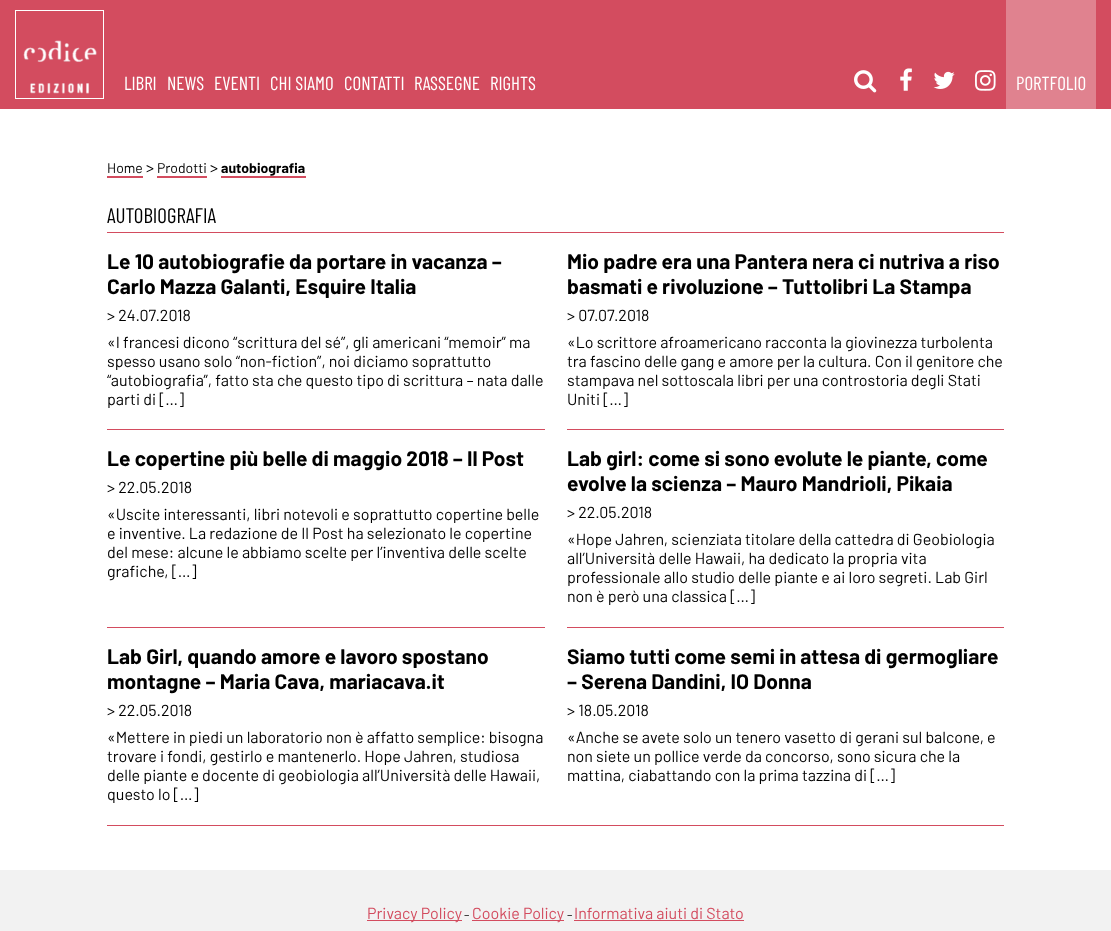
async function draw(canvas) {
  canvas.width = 1111
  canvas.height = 931
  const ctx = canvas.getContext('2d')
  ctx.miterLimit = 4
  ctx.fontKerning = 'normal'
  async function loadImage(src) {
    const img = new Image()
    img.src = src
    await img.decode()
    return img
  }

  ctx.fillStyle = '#fff'
  ctx.fillRect(0, 0, 1111, 931)
  ctx.fillStyle = '#d34c5f'
  ctx.fillRect(0, 0, 1111, 109)
  ctx.strokeStyle = '#fff'
  ctx.strokeRect(15.5, 10.5, 88, 88)
  ctx.drawImage(await loadImage('image0.png'), 23, 40, 74, 54)
  ctx.font = '19px Barlow Condensed'
  ctx.fillStyle = '#fff'
  ctx.fillText('LIBRI', 124, 90)
  ctx.fillText('NEWS', 167, 90)
  ctx.fillText('EVENTI', 214, 90)
  ctx.fillText('CHI SIAMO', 270, 90)
  ctx.fillText('CONTATTI', 344, 90)
  ctx.fillText('RASSEGNE', 414, 90)
  ctx.fillText('RIGHTS', 490, 90)
  ctx.drawImage(await loadImage('image1.png'), 854, 70, 23, 23)
  ctx.drawImage(await loadImage('image2.png'), 900, 68, 12, 23)
  ctx.drawImage(await loadImage('image3.png'), 933, 71, 22, 18)
  ctx.drawImage(await loadImage('image4.png'), 975, 70, 21, 21)
  ctx.fillStyle = '#e0828f'
  ctx.fillRect(1006, 0, 90, 109)
  ctx.fillStyle = '#fff'
  ctx.fillText('PORTFOLIO', 1016, 90)
  ctx.font = '14px Barlow'
  ctx.fillStyle = '#000'
  ctx.fillText('Home', 107, 173)
  ctx.fillStyle = '#d34c5f'
  ctx.fillRect(107, 176, 36, 2)
  ctx.font = '16px Barlow'
  ctx.fillStyle = '#000'
  ctx.fillText('>', 146, 173)
  ctx.font = '14px Barlow'
  ctx.fillText('Prodotti', 157, 173)
  ctx.fillStyle = '#d34c5f'
  ctx.fillRect(157, 176, 50, 2)
  ctx.font = '16px Barlow'
  ctx.fillStyle = '#000'
  ctx.fillText('>', 210, 173)
  ctx.font = 'bold 14px Barlow'
  ctx.fillText('autobiografia', 221, 173)
  ctx.fillStyle = '#d34c5f'
  ctx.fillRect(221, 176, 85, 2)
  ctx.font = '21px Barlow Condensed'
  ctx.fillStyle = '#000'
  ctx.fillText('AUTOBIOGRAFIA', 107, 223)
  ctx.fillStyle = '#d34c5f'
  ctx.fillRect(107, 232, 897, 1)
  ctx.font = 'bold 21px Barlow'
  ctx.fillStyle = '#000'
  ctx.fillText('Le 10 autobiografie da portare in vacanza –', 107, 269)
  ctx.fillText('Carlo Mazza Galanti, Esquire Italia', 107, 294)
  ctx.font = '16px Barlow'
  ctx.fillText('> 24.07.2018', 107, 321)
  ctx.fillText('«I francesi dicono “scrittura del sé”, gli americani “memoir” ma', 107, 348)
  ctx.fillText('spesso usano solo “non-fiction”, noi diciamo soprattutto', 107, 367)
  ctx.fillText('“autobiografia”, fatto sta che questo tipo di scrittura – nata dalle', 107, 386)
  ctx.fillText('parti di […]', 107, 405)
  ctx.fillStyle = '#d34c5f'
  ctx.fillRect(107, 429, 438, 1)
  ctx.font = 'bold 21px Barlow'
  ctx.fillStyle = '#000'
  ctx.fillText('Mio padre era una Pantera nera ci nutriva a riso', 567, 269)
  ctx.fillText('basmati e rivoluzione – Tuttolibri La Stampa', 567, 294)
  ctx.font = '16px Barlow'
  ctx.fillText('> 07.07.2018', 567, 321)
  ctx.fillText('«Lo scrittore afroamericano racconta la giovinezza turbolenta', 567, 348)
  ctx.fillText('tra fascino delle gang e amore per la cultura. Con il genitore che', 567, 367)
  ctx.fillText('stampava nel sottoscala libri per una controstoria degli Stati', 567, 386)
  ctx.fillText('Uniti […]', 567, 405)
  ctx.fillStyle = '#d34c5f'
  ctx.fillRect(567, 429, 437, 1)
  ctx.font = 'bold 21px Barlow'
  ctx.fillStyle = '#000'
  ctx.fillText('Le copertine più belle di maggio 2018 – Il Post', 107, 466)
  ctx.font = '16px Barlow'
  ctx.fillText('> 22.05.2018', 107, 493)
  ctx.fillText('«Uscite interessanti, libri notevoli e soprattutto copertine belle', 107, 520)
  ctx.fillText('e inventive. La redazione de Il Post ha selezionato le copertine', 107, 539)
  ctx.fillText('del mese: alcune le abbiamo scelte per l’inventiva delle scelte', 107, 558)
  ctx.fillText('grafiche, […]', 107, 577)
  ctx.fillStyle = '#d34c5f'
  ctx.fillRect(107, 627, 438, 1)
  ctx.font = 'bold 21px Barlow'
  ctx.fillStyle = '#000'
  ctx.fillText('Lab girl: come si sono evolute le piante, come', 567, 466)
  ctx.fillText('evolve la scienza – Mauro Mandrioli, Pikaia', 567, 491)
  ctx.font = '16px Barlow'
  ctx.fillText('> 22.05.2018', 567, 518)
  ctx.fillText('«Hope Jahren, scienziata titolare della cattedra di Geobiologia', 567, 545)
  ctx.fillText('all’Università delle Hawaii, ha dedicato la propria vita', 567, 564)
  ctx.fillText('professionale allo studio delle piante e ai loro segreti. Lab Girl', 567, 583)
  ctx.fillText('non è però una classica […]', 567, 602)
  ctx.fillStyle = '#d34c5f'
  ctx.fillRect(567, 627, 437, 1)
  ctx.font = 'bold 21px Barlow'
  ctx.fillStyle = '#000'
  ctx.fillText('Lab Girl, quando amore e lavoro spostano', 107, 664)
  ctx.fillText('montagne – Maria Cava, mariacava.it', 107, 689)
  ctx.font = '16px Barlow'
  ctx.fillText('> 22.05.2018', 107, 716)
  ctx.fillText('«Mettere in piedi un laboratorio non è affatto semplice: bisogna', 107, 743)
  ctx.fillText('trovare i fondi, gestirlo e mantenerlo. Hope Jahren, studiosa', 107, 762)
  ctx.fillText('delle piante e docente di geobiologia all’Università delle Hawaii,', 107, 781)
  ctx.fillText('questo lo […]', 107, 800)
  ctx.font = 'bold 21px Barlow'
  ctx.fillText('Siamo tutti come semi in attesa di germogliare', 567, 664)
  ctx.fillText('– Serena Dandini, IO Donna', 567, 689)
  ctx.font = '16px Barlow'
  ctx.fillText('> 18.05.2018', 567, 716)
  ctx.fillText('«Anche se avete solo un tenero vasetto di gerani sul balcone, e', 567, 743)
  ctx.fillText('non siete un pollice verde da concorso, sono sicura che la', 567, 762)
  ctx.fillText('mattina, ciabattando con la prima tazzina di […]', 567, 781)
  ctx.fillStyle = '#d34c5f'
  ctx.fillRect(107, 825, 897, 1)
  ctx.fillStyle = '#f2f2f2'
  ctx.fillRect(0, 870, 1111, 61)
  ctx.fillStyle = '#d34c5f'
  ctx.fillRect(367, 920, 95, 1)
  ctx.fillText('Privacy Policy', 367, 919)
  ctx.font = '12px Barlow'
  ctx.fillStyle = '#000'
  ctx.fillText('–', 464, 919)
  ctx.fillStyle = '#d34c5f'
  ctx.fillRect(472, 920, 92, 1)
  ctx.font = '16px Barlow'
  ctx.fillText('Cookie Policy', 472, 919)
  ctx.font = '12px Barlow'
  ctx.fillStyle = '#000'
  ctx.fillText('–', 567, 919)
  ctx.font = '16px Barlow'
  ctx.fillStyle = '#d34c5f'
  ctx.fillText('Informativa aiuti di Stato', 574, 919)
  ctx.fillRect(574, 920, 170, 1)
}

draw(document.querySelector('canvas'))
